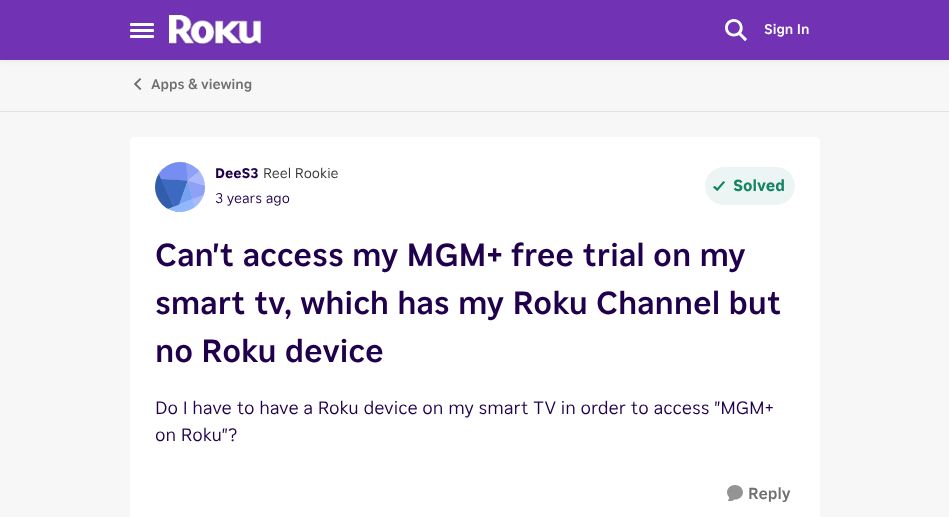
async function draw(canvas) {
  canvas.width = 949
  canvas.height = 517
  const ctx = canvas.getContext('2d')
  ctx.miterLimit = 4
  ctx.fontKerning = 'normal'
  async function loadImage(src) {
    const img = new Image()
    img.src = src
    await img.decode()
    return img
  }

  ctx.fillStyle = '#f7f7f7'
  ctx.fillRect(0, 0, 949, 517)
  ctx.fillStyle = '#3333330f'
  ctx.filter = 'blur(2px)'
  ctx.beginPath()
  ctx.rect(0, 2, 949, 60)
  ctx.fill()
  ctx.filter = 'none'
  ctx.fillStyle = '#7132b4'
  ctx.fillRect(0, 0, 949, 60)
  ctx.fillStyle = '#fff'
  ctx.beginPath()
  ctx.roundRect(130, 23, 24, 3, 1)
  ctx.fill()
  ctx.beginPath()
  ctx.roundRect(130, 29, 24, 3, 1)
  ctx.fill()
  ctx.beginPath()
  ctx.roundRect(130, 35, 24, 3, 1)
  ctx.fill()
  ctx.drawImage(await loadImage('image0.png'), 169, 15, 92, 30)
  ctx.drawImage(await loadImage('image1.png'), 725, 19, 22, 23)
  ctx.font = '500 14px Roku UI'
  ctx.fillText('Sign In', 764, 34)
  ctx.fillStyle = '#e3e3e3'
  ctx.fillRect(0, 111, 949, 1)
  ctx.drawImage(await loadImage('image2.png'), 134, 78, 8, 12)
  ctx.fillStyle = '#707070'
  ctx.fillText('Apps & viewing', 151, 89)
  ctx.fillStyle = '#fff'
  ctx.beginPath()
  ctx.roundRect(130, 137, 690, 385, 5)
  ctx.fill()
  ctx.fillStyle = '#d9d9d9'
  ctx.beginPath()
  ctx.arc(180, 187, 25, 0, 2 * Math.PI)
  ctx.fill()
  ctx.drawImage(await loadImage('image3.png'), 155, 162, 50, 50)
  ctx.font = 'bold 14px Roku UI'
  ctx.fillStyle = '#20004c'
  ctx.fillText('DeeS3', 215, 178)
  ctx.font = '14px Roku UI'
  ctx.fillStyle = '#333'
  ctx.fillText('Reel Rookie', 263, 178)
  ctx.fillStyle = '#20004c'
  ctx.fillText('3 years ago', 215, 203)
  ctx.fillStyle = '#ecf5f3'
  ctx.beginPath()
  ctx.roundRect(705, 167, 90, 38, 19)
  ctx.fill()
  ctx.drawImage(await loadImage('image4.png'), 713, 181, 12, 10)
  ctx.font = 'bold 16px Roku UI'
  ctx.fillStyle = '#148563'
  ctx.fillText('Solved', 733, 191)
  ctx.font = '500 32px Roku UI'
  ctx.fillStyle = '#20004c'
  ctx.fillText('Can\'t access my MGM+ free trial on my', 155, 266)
  ctx.fillText('smart tv, which has my Roku Channel but', 155, 314)
  ctx.fillText('no Roku device', 155, 362)
  ctx.font = '18px Roku UI'
  ctx.fillText('Do I have to have a Roku device on my smart TV in order to access "MGM+', 155, 414)
  ctx.fillText('on Roku"?', 155, 441)
  ctx.drawImage(await loadImage('image5.png'), 727, 485, 16, 16)
  ctx.font = '500 16px Roku UI'
  ctx.fillStyle = '#707070'
  ctx.fillText('Reply', 748, 499)
}

draw(document.querySelector('canvas'))
